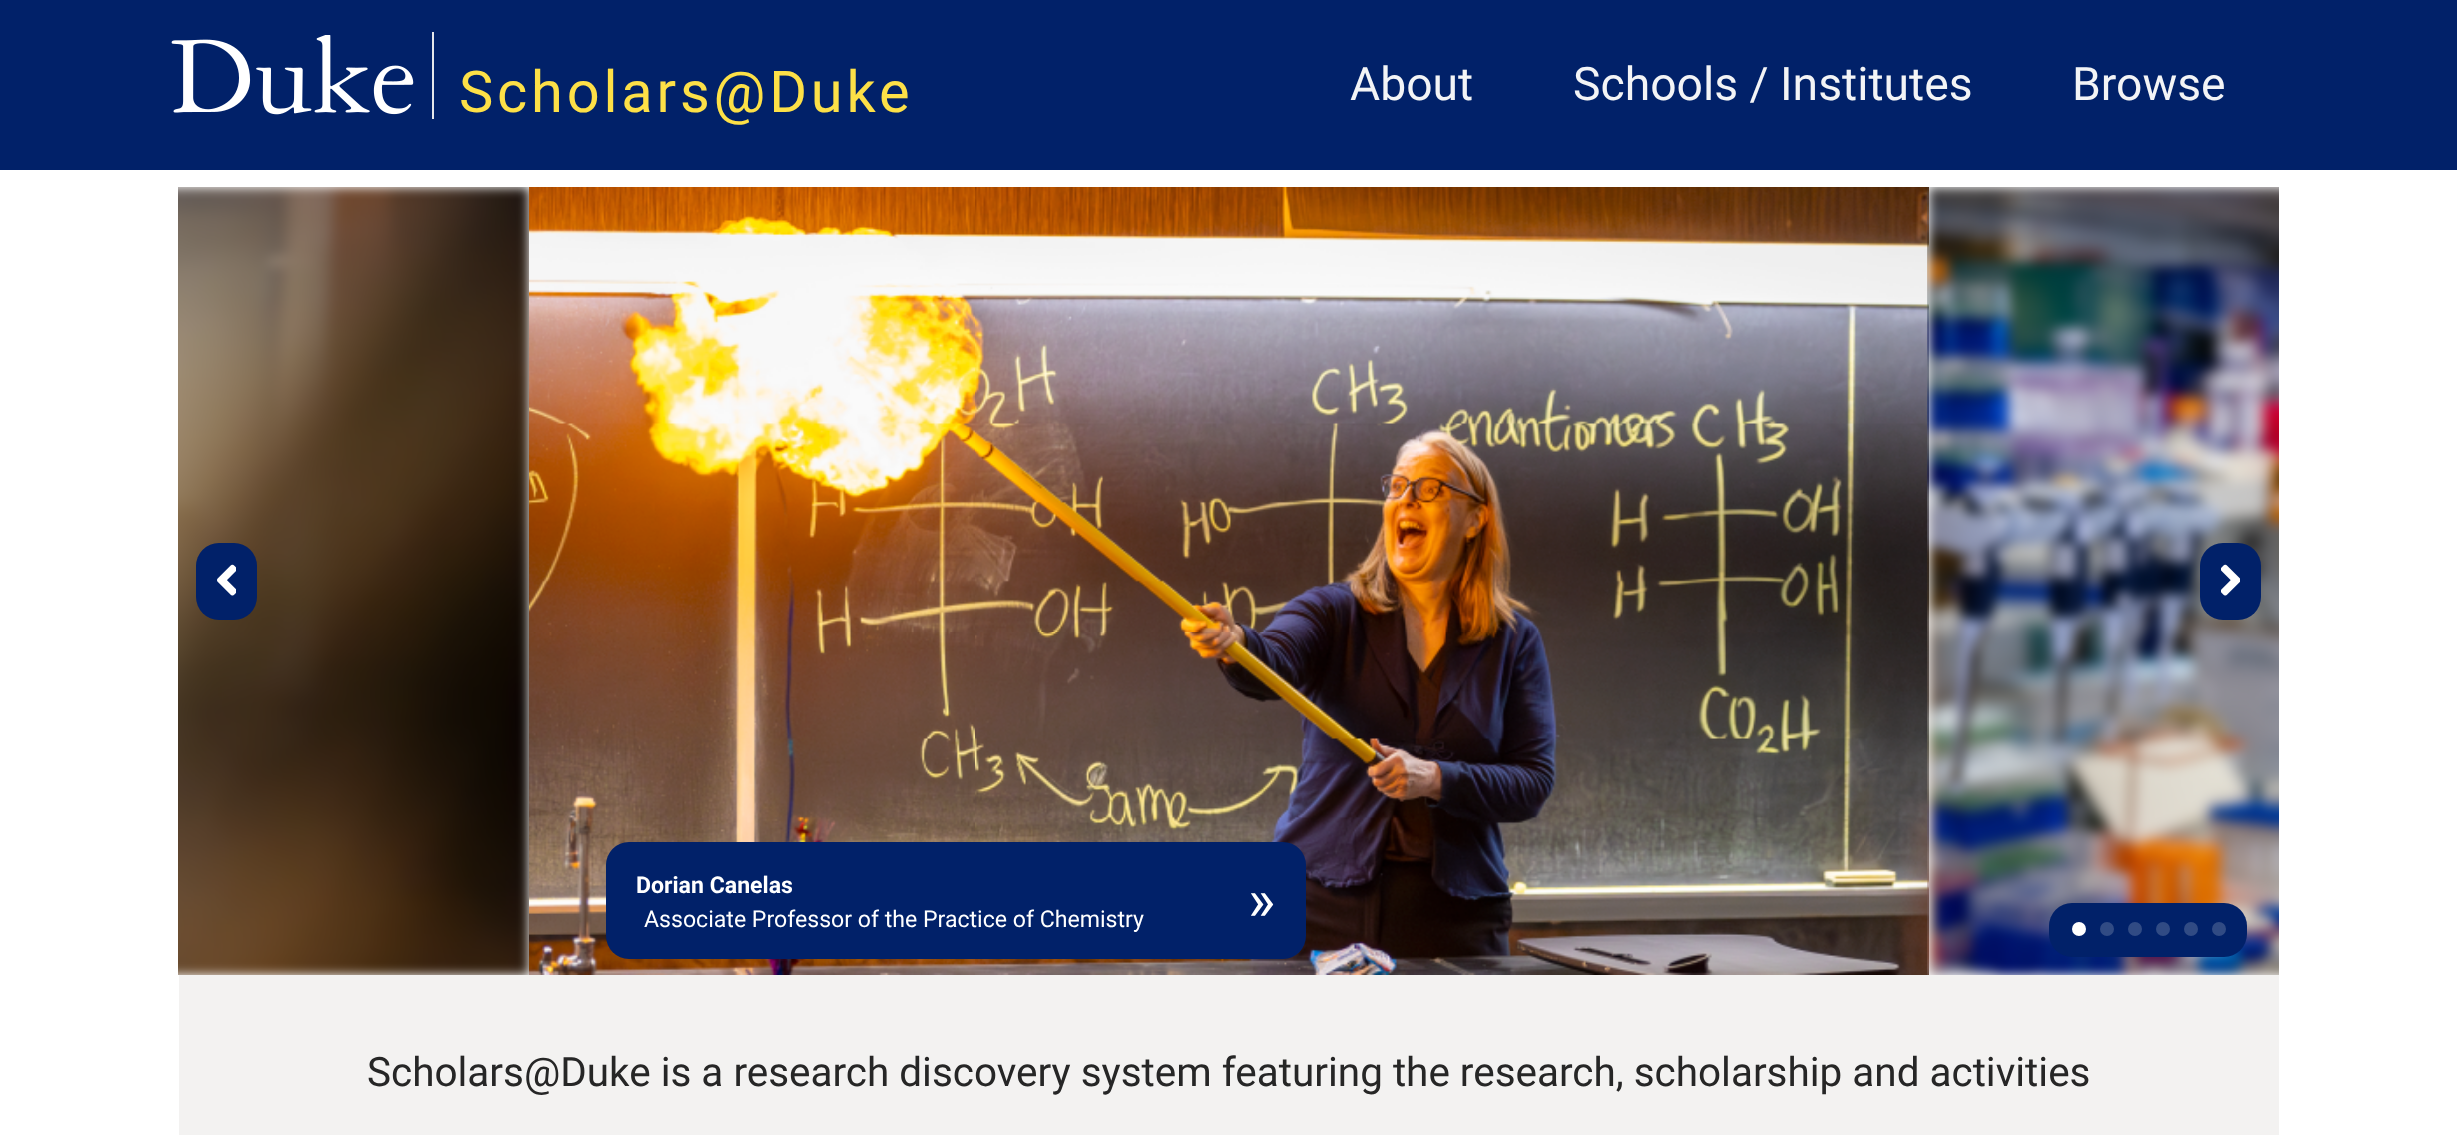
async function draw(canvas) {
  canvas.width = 2457
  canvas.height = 1135
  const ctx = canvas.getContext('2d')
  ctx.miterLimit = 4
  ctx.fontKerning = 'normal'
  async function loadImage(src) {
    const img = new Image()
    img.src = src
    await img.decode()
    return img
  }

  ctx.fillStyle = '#fff'
  ctx.fillRect(0, 0, 2457, 1135)
  ctx.fillStyle = '#012169'
  ctx.fillRect(0, 0, 2457, 170)
  ctx.drawImage(await loadImage('image0.png'), 171, 35, 243, 80)
  ctx.fillStyle = '#e5e7eb'
  ctx.fillRect(432, 32, 2, 87)
  ctx.letterSpacing = '3.8px'
  ctx.font = '57.75px Roboto'
  ctx.fillStyle = '#fde047'
  ctx.fillText('Scholars@Duke', 459, 112)
  ctx.letterSpacing = '0px'
  ctx.font = '46.25px Roboto'
  ctx.fillStyle = '#f3f4f6'
  ctx.fillText('About', 1350, 100)
  ctx.fillText('Schools / Institutes', 1573, 100)
  ctx.fillText('Browse', 2072, 100)
  ctx.drawImage(await loadImage('image3.png'), 178, 187, 351, 788)
  ctx.fillStyle = '#012169'
  ctx.beginPath()
  ctx.roundRect(196, 543, 61, 77, 23)
  ctx.fill()
  ctx.drawImage(await loadImage('image1.png'), 217, 564, 19, 32)
  ctx.drawImage(await loadImage('image4.png'), 529, 187, 1400, 788)
  ctx.drawImage(await loadImage('image5.png'), 1927, 187, 352, 788)
  ctx.beginPath()
  ctx.roundRect(2200, 543, 61, 77, 23)
  ctx.fill()
  ctx.drawImage(await loadImage('image2.png'), 2221, 564, 19, 32)
  ctx.beginPath()
  ctx.roundRect(606, 842, 700, 117, 23)
  ctx.fill()
  ctx.font = 'bold 23.1px Roboto'
  ctx.fillStyle = '#fff'
  ctx.fillText('Dorian Canelas', 636, 893)
  ctx.font = '23.1px Roboto'
  ctx.fillText('Associate Professor of the Practice of Chemistry', 644, 927)
  ctx.font = '57.75px Roboto'
  ctx.fillText('»', 1248, 920)
  ctx.fillStyle = '#012169'
  ctx.beginPath()
  ctx.roundRect(2049, 903, 198, 54, 23)
  ctx.fill()
  ctx.fillStyle = '#fff'
  ctx.beginPath()
  ctx.arc(2079, 929, 7, 0, 2 * Math.PI)
  ctx.fill()
  ctx.fillStyle = '#314b84'
  ctx.beginPath()
  ctx.arc(2107, 929, 7, 0, 2 * Math.PI)
  ctx.fill()
  ctx.beginPath()
  ctx.arc(2135, 929, 7, 0, 2 * Math.PI)
  ctx.fill()
  ctx.beginPath()
  ctx.arc(2163, 929, 7, 0, 2 * Math.PI)
  ctx.fill()
  ctx.beginPath()
  ctx.arc(2191, 929, 7, 0, 2 * Math.PI)
  ctx.fill()
  ctx.beginPath()
  ctx.arc(2219, 929, 7, 0, 2 * Math.PI)
  ctx.fill()
  ctx.fillStyle = '#f3f2f1'
  ctx.fillRect(179, 975, 2100, 160)
  ctx.font = '40.45px Roboto'
  ctx.fillStyle = '#262626'
  ctx.fillText('Scholars@Duke is a research discovery system featuring the research, scholarship and activities', 367, 1086)
}

draw(document.querySelector('canvas'))
